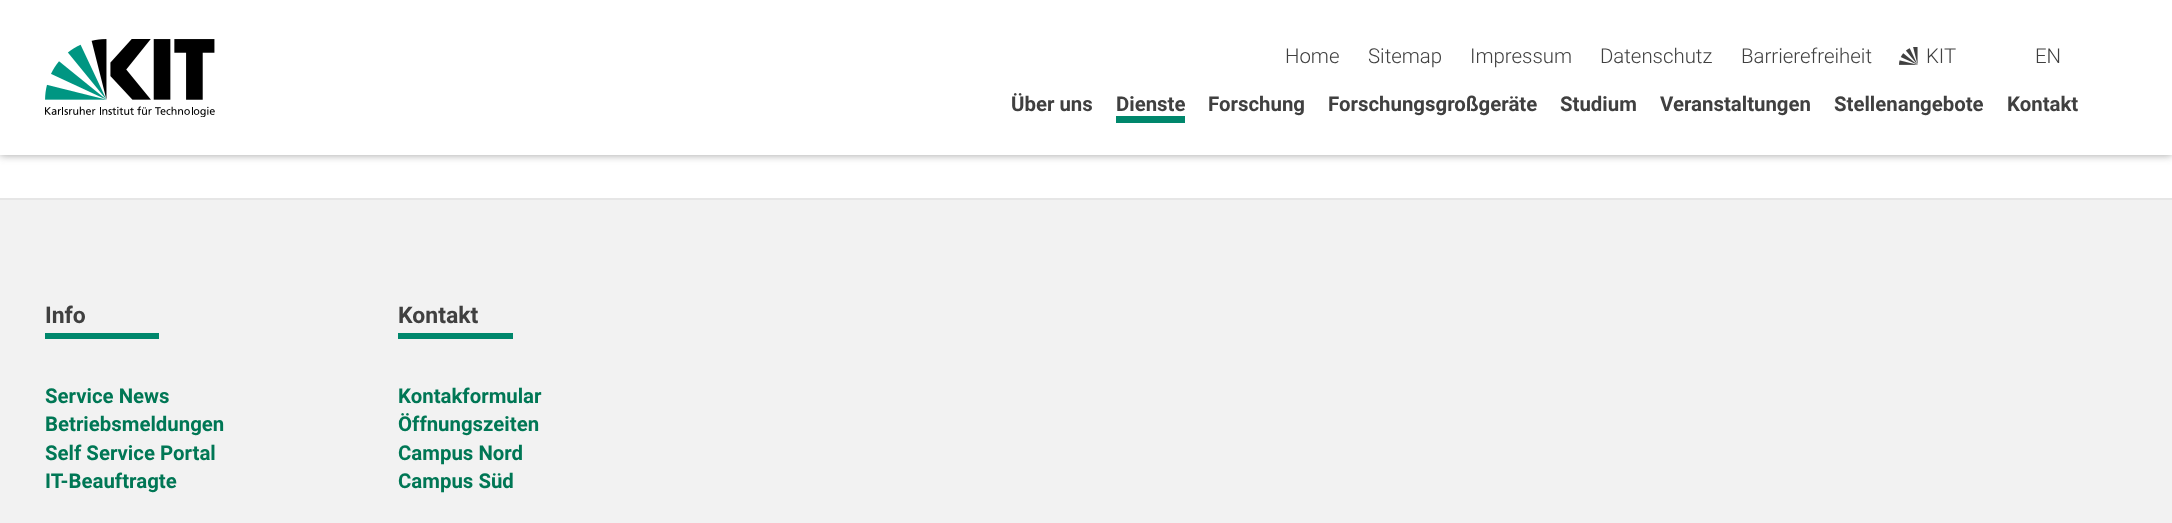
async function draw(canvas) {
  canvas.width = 2172
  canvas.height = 523
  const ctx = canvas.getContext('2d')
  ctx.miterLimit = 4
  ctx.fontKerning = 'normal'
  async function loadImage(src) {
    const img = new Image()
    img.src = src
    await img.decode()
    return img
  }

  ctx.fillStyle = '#fff'
  ctx.fillRect(0, 0, 2172, 523)
  ctx.fillStyle = '#40404080'
  ctx.filter = 'blur(4px)'
  ctx.beginPath()
  ctx.rect(0, 0, 2172, 155)
  ctx.fill()
  ctx.filter = 'none'
  ctx.fillStyle = '#fff'
  ctx.fillRect(0, 0, 2172, 155)
  ctx.drawImage(await loadImage('image0.png'), 45, 39, 170, 78)
  ctx.font = '300 20.4px Roboto'
  ctx.fillStyle = '#404040'
  ctx.fillText('Home', 1285, 63)
  ctx.fillText('Sitemap', 1368, 63)
  ctx.fillText('Impressum', 1470, 63)
  ctx.fillText('Datenschutz', 1600, 63)
  ctx.fillText('Barrierefreiheit', 1741, 63)
  ctx.drawImage(await loadImage('image1.png'), 1899, 47, 19, 18)
  ctx.fillText('KIT', 1926, 63)
  ctx.fillText('EN', 2035, 63)
  ctx.font = 'bold 20.4px Roboto'
  ctx.fillText('Über uns', 1011, 111)
  ctx.fillText('Dienste', 1116, 111)
  ctx.fillStyle = '#00876c'
  ctx.fillRect(1116, 116, 69, 7)
  ctx.fillStyle = '#404040'
  ctx.fillText('Forschung', 1208, 111)
  ctx.fillText('Forschungsgroßgeräte', 1328, 111)
  ctx.fillText('Studium', 1560, 111)
  ctx.fillText('Veranstaltungen', 1660, 111)
  ctx.fillText('Stellenangebote', 1834, 111)
  ctx.fillText('Kontakt', 2007, 111)
  ctx.fillStyle = '#f2f2f2'
  ctx.fillRect(0, 200, 2172, 323)
  ctx.fillStyle = '#e6e6e6'
  ctx.fillRect(0, 198, 2172, 2)
  ctx.font = 'bold 23px Roboto'
  ctx.fillStyle = '#404040'
  ctx.fillText('Info', 45, 323)
  ctx.fillStyle = '#00876c'
  ctx.fillRect(45, 333, 114, 6)
  ctx.font = 'bold 20.4px Roboto'
  ctx.fillStyle = '#075'
  ctx.fillText('Service News', 45, 403)
  ctx.fillText('Betriebsmeldungen', 45, 431)
  ctx.fillText('Self Service Portal', 45, 460)
  ctx.fillText('IT-Beauftragte', 45, 488)
  ctx.font = 'bold 23px Roboto'
  ctx.fillStyle = '#404040'
  ctx.fillText('Kontakt', 398, 323)
  ctx.fillStyle = '#00876c'
  ctx.fillRect(398, 333, 115, 6)
  ctx.font = 'bold 20.4px Roboto'
  ctx.fillStyle = '#075'
  ctx.fillText('Kontakformular', 398, 403)
  ctx.fillText('Öffnungszeiten', 398, 431)
  ctx.fillText('Campus Nord', 398, 460)
  ctx.fillText('Campus Süd', 398, 488)
}

draw(document.querySelector('canvas'))
